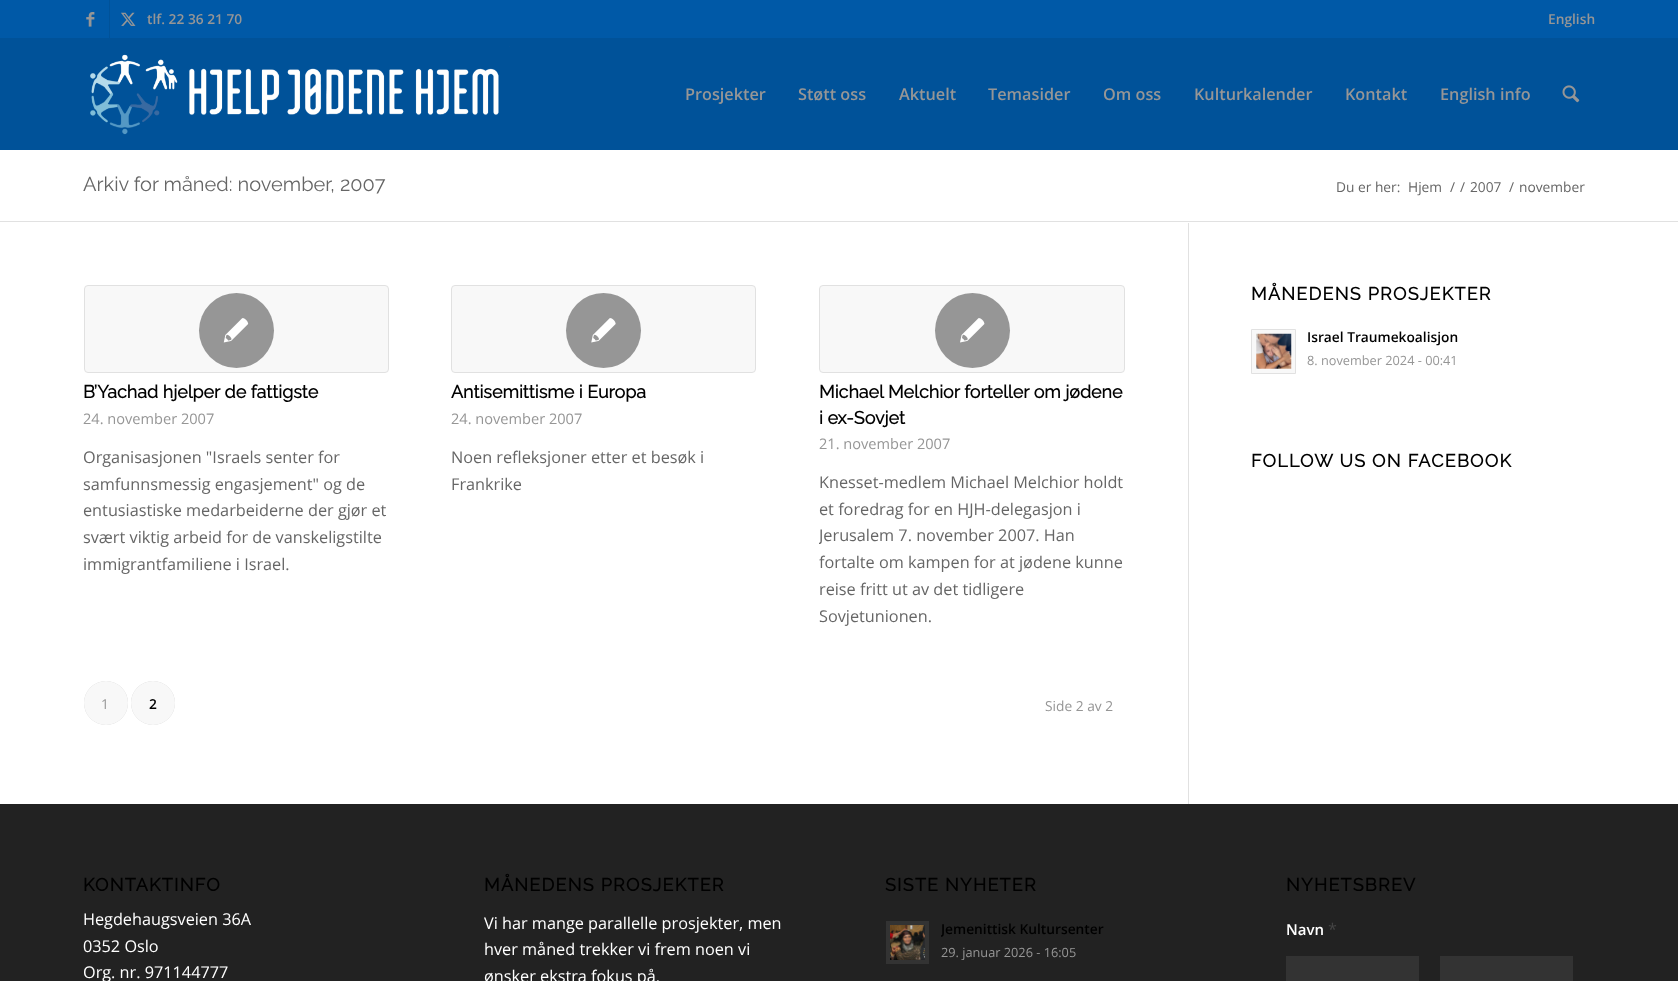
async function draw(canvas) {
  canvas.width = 1678
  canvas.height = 981
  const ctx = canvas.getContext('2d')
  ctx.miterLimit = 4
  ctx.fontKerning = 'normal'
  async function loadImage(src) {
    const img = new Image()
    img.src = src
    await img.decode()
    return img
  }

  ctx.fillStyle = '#005299'
  ctx.fillRect(0, 0, 1678, 981)
  ctx.fillStyle = '#0059a7'
  ctx.fillRect(0, 0, 1678, 38)
  ctx.fillStyle = '#005299'
  ctx.fillRect(109, 0, 1, 38)
  ctx.drawImage(await loadImage('image0.png'), 86, 12, 9, 15)
  ctx.drawImage(await loadImage('image1.png'), 121, 12, 15, 14)
  ctx.font = '600 13.75px Open Sans'
  ctx.fillStyle = '#969696'
  ctx.fillText('tlf. 22 36 21 70', 147, 24)
  ctx.fillText('English', 1548, 24)
  ctx.drawImage(await loadImage('image2.png'), 90, 46, 420, 89)
  ctx.font = '600 16.25px Open Sans'
  ctx.fillText('Prosjekter', 685, 100)
  ctx.fillText('Støtt oss', 798, 100)
  ctx.fillText('Aktuelt', 899, 100)
  ctx.fillText('Temasider', 988, 100)
  ctx.fillText('Om oss', 1103, 100)
  ctx.fillText('Kulturkalender', 1194, 100)
  ctx.fillText('Kontakt', 1345, 100)
  ctx.fillText('English info', 1440, 100)
  ctx.drawImage(await loadImage('image3.png'), 1562, 85, 18, 18)
  ctx.fillStyle = '#fff'
  ctx.fillRect(0, 150, 1678, 71)
  ctx.font = '100 20px Raleway'
  ctx.fillStyle = '#666'
  ctx.fillText('Arkiv for måned: november, 2007', 83, 191)
  ctx.font = '13.75px Open Sans'
  ctx.fillText('Du er her:', 1336, 192)
  ctx.fillText('Hjem', 1408, 192)
  ctx.fillText('/', 1450, 192)
  ctx.fillText('/', 1460, 192)
  ctx.fillText('2007', 1470, 192)
  ctx.fillText('/', 1509, 192)
  ctx.fillText('november', 1519, 192)
  ctx.fillStyle = '#fff'
  ctx.fillRect(0, 222, 1678, 582)
  ctx.fillStyle = '#e1e1e1'
  ctx.fillRect(0, 221, 1678, 1)
  ctx.fillRect(1188, 223, 1, 581)
  ctx.fillStyle = '#f8f8f8'
  ctx.beginPath()
  ctx.roundRect(84.5, 285.5, 304, 87, 3.5)
  ctx.fill()
  ctx.strokeStyle = '#e1e1e1'
  ctx.stroke()
  ctx.fillStyle = '#969696'
  ctx.beginPath()
  ctx.arc(236.5, 330.5, 37.5, 0, 2 * Math.PI)
  ctx.fill()
  ctx.drawImage(await loadImage('image4.png'), 223, 318, 26, 25)
  ctx.font = 'bold 17.9px Raleway'
  ctx.fillStyle = '#000'
  ctx.fillText('B’Yachad hjelper de fattigste', 83, 398)
  ctx.font = '14.6px Open Sans'
  ctx.fillStyle = '#969696'
  ctx.fillText('24. november 2007', 83, 424)
  ctx.font = '16.25px Open Sans'
  ctx.fillStyle = '#666'
  ctx.fillText('Organisasjonen "Israels senter for', 83, 463)
  ctx.fillText('samfunnsmessig engasjement" og de', 83, 490)
  ctx.fillText('entusiastiske medarbeiderne der gjør et', 83, 516)
  ctx.fillText('svært viktig arbeid for de vanskeligstilte', 83, 543)
  ctx.fillText('immigrantfamiliene i Israel.', 83, 570)
  ctx.fillStyle = '#f8f8f8'
  ctx.beginPath()
  ctx.roundRect(451.5, 285.5, 304, 87, 3.5)
  ctx.fill()
  ctx.stroke()
  ctx.fillStyle = '#969696'
  ctx.beginPath()
  ctx.arc(603.5, 330.5, 37.5, 0, 2 * Math.PI)
  ctx.fill()
  ctx.drawImage(await loadImage('image5.png'), 591, 318, 25, 25)
  ctx.font = 'bold 17.9px Raleway'
  ctx.fillStyle = '#000'
  ctx.fillText('Antisemittisme i Europa', 451, 398)
  ctx.font = '14.6px Open Sans'
  ctx.fillStyle = '#969696'
  ctx.fillText('24. november 2007', 451, 424)
  ctx.font = '16.25px Open Sans'
  ctx.fillStyle = '#666'
  ctx.fillText('Noen refleksjoner etter et besøk i', 451, 463)
  ctx.fillText('Frankrike', 451, 490)
  ctx.fillStyle = '#f8f8f8'
  ctx.beginPath()
  ctx.roundRect(819.5, 285.5, 305, 87, 3.5)
  ctx.fill()
  ctx.stroke()
  ctx.fillStyle = '#969696'
  ctx.beginPath()
  ctx.arc(972.5, 330.5, 37.5, 0, 2 * Math.PI)
  ctx.fill()
  ctx.drawImage(await loadImage('image6.png'), 960, 318, 25, 25)
  ctx.font = 'bold 17.9px Raleway'
  ctx.fillStyle = '#000'
  ctx.fillText('Michael Melchior forteller om jødene', 819, 398)
  ctx.fillText('i ex-Sovjet', 819, 424)
  ctx.font = '14.6px Open Sans'
  ctx.fillStyle = '#969696'
  ctx.fillText('21. november 2007', 819, 449)
  ctx.font = '16.25px Open Sans'
  ctx.fillStyle = '#666'
  ctx.fillText('Knesset-medlem Michael Melchior holdt', 819, 488)
  ctx.fillText('et foredrag for en HJH-delegasjon i', 819, 515)
  ctx.save()
  ctx.beginPath()
  ctx.rect(819, 469, 306, 161)
  ctx.clip()
  ctx.fillText('Jerusalem 7. november 2007. Han', 819, 541)
  ctx.restore()
  ctx.fillText('fortalte om kampen for at jødene kunne', 819, 568)
  ctx.fillText('reise fritt ut av det tidligere', 819, 595)
  ctx.fillText('Sovjetunionen.', 819, 622)
  ctx.fillStyle = '#00000033'
  ctx.filter = 'blur(0.5px)'
  ctx.beginPath()
  ctx.roundRect(84, 681, 44, 44, 22)
  ctx.fill()
  ctx.filter = 'none'
  ctx.fillStyle = '#f8f8f8'
  ctx.beginPath()
  ctx.arc(106, 703, 22, 0, 2 * Math.PI)
  ctx.fill()
  ctx.font = '13.75px Open Sans'
  ctx.fillStyle = '#969696'
  ctx.fillText('1', 101, 709)
  ctx.fillStyle = '#00000033'
  ctx.filter = 'blur(0.5px)'
  ctx.beginPath()
  ctx.roundRect(131, 681, 44, 44, 22)
  ctx.fill()
  ctx.filter = 'none'
  ctx.fillStyle = '#f8f8f8'
  ctx.beginPath()
  ctx.arc(153, 703, 22, 0, 2 * Math.PI)
  ctx.fill()
  ctx.font = '600 13.75px Open Sans'
  ctx.fillStyle = '#000'
  ctx.fillText('2', 149, 709)
  ctx.font = '13.75px Open Sans'
  ctx.fillStyle = '#969696'
  ctx.fillText('Side 2 av 2', 1045, 711)
  ctx.letterSpacing = '1.25px'
  ctx.font = 'bold 17.9px Raleway'
  ctx.fillStyle = '#000'
  ctx.fillText('MÅNEDENS PROSJEKTER', 1251, 300)
  ctx.fillStyle = '#f8f8f8'
  ctx.beginPath()
  ctx.rect(1251.5, 329.5, 44, 44)
  ctx.fill()
  ctx.stroke()
  ctx.drawImage(await loadImage('image7.png'), 1256, 333, 36, 36)
  ctx.letterSpacing = '0px'
  ctx.font = '600 13.75px Open Sans'
  ctx.fillStyle = '#000'
  ctx.fillText('Israel Traumekoalisjon', 1307, 342)
  ctx.font = '12.75px Open Sans'
  ctx.fillStyle = '#969696'
  ctx.fillText('8. november 2024 - 00:41', 1307, 365)
  ctx.letterSpacing = '1.25px'
  ctx.font = 'bold 17.9px Raleway'
  ctx.fillStyle = '#000'
  ctx.fillText('FOLLOW US ON FACEBOOK', 1251, 467)
  ctx.fillStyle = '#222'
  ctx.fillRect(0, 804, 1678, 177)
  ctx.fillStyle = '#000'
  ctx.fillText('KONTAKTINFO', 83, 891)
  ctx.letterSpacing = '0px'
  ctx.font = '16.25px Open Sans'
  ctx.fillStyle = '#fff'
  ctx.fillText('Hegdehaugsveien 36A', 83, 925)
  ctx.fillText('0352 Oslo', 83, 952)
  ctx.fillText('Org. nr. 971144777', 83, 978)
  ctx.letterSpacing = '1.25px'
  ctx.font = 'bold 17.9px Raleway'
  ctx.fillStyle = '#000'
  ctx.fillText('MÅNEDENS PROSJEKTER', 484, 891)
  ctx.letterSpacing = '0px'
  ctx.font = '16.25px Open Sans'
  ctx.fillStyle = '#fff'
  ctx.fillText('Vi har mange parallelle prosjekter, men', 484, 929)
  ctx.fillText('hver måned trekker vi frem noen vi', 484, 955)
  ctx.fillText('ønsker ekstra fokus på.', 484, 982)
  ctx.letterSpacing = '1.25px'
  ctx.font = 'bold 17.9px Raleway'
  ctx.fillStyle = '#000'
  ctx.fillText('SISTE NYHETER', 885, 891)
  ctx.fillStyle = '#333'
  ctx.fillRect(886, 921, 43, 43)
  ctx.drawImage(await loadImage('image8.png'), 890, 925, 35, 35)
  ctx.save()
  ctx.beginPath()
  ctx.rect(941, 918, 254, 46)
  ctx.clip()
  ctx.letterSpacing = '0px'
  ctx.font = '600 13.75px Open Sans'
  ctx.fillStyle = '#000'
  ctx.fillText('Jemenittisk Kultursenter', 941, 934)
  ctx.restore()
  ctx.letterSpacing = '0px'
  ctx.font = '12.75px Open Sans'
  ctx.fillStyle = '#969696'
  ctx.fillText('29. januar 2026 - 16:05', 941, 957)
  ctx.letterSpacing = '1.25px'
  ctx.font = 'bold 17.9px Raleway'
  ctx.fillStyle = '#000'
  ctx.fillText('NYHETSBREV', 1286, 891)
  ctx.letterSpacing = '0px'
  ctx.font = '600 15px Open Sans'
  ctx.fillStyle = '#fff'
  ctx.fillText('Navn', 1286, 935)
  ctx.font = '16.25px Open Sans'
  ctx.fillStyle = '#444'
  ctx.fillText('*', 1328, 935)
  ctx.fillStyle = '#333'
  ctx.fillRect(1286, 956, 133, 25)
  ctx.fillRect(1440, 956, 133, 25)
}

draw(document.querySelector('canvas'))
